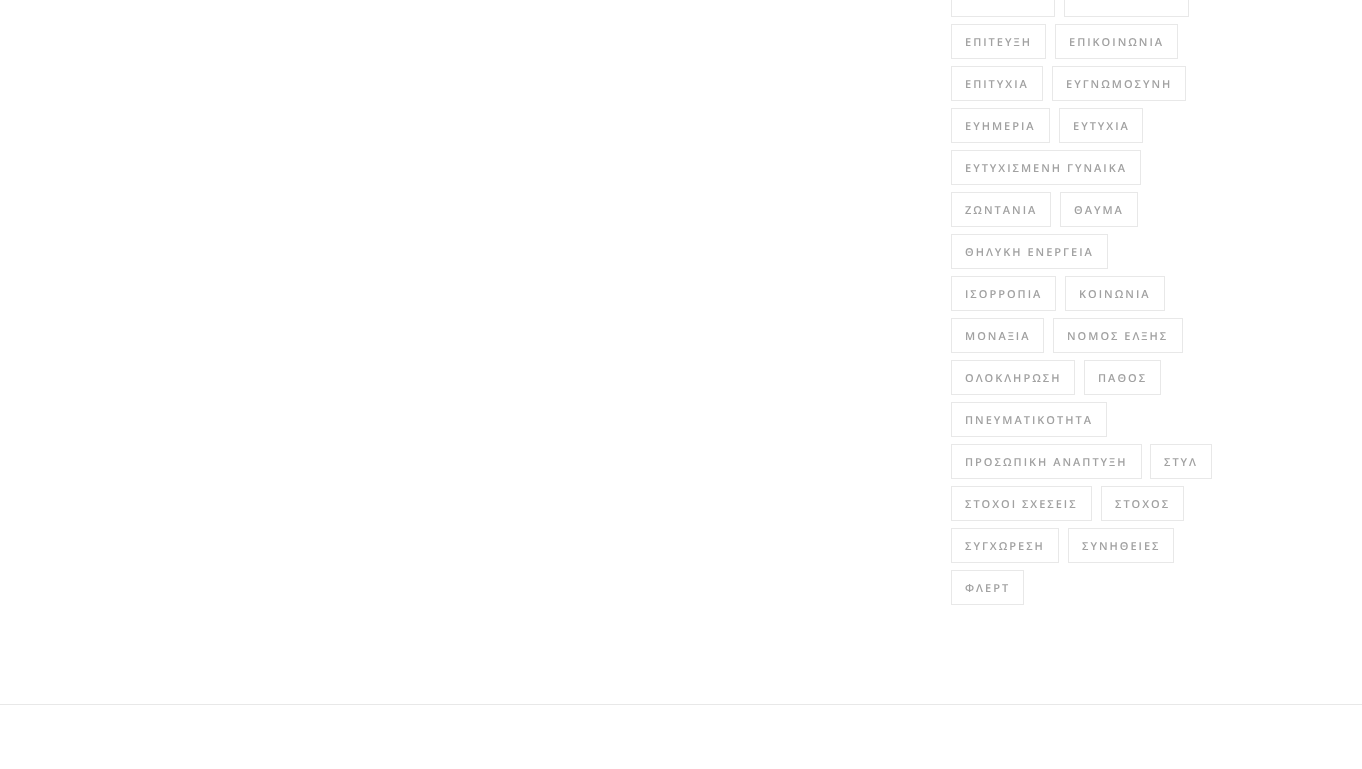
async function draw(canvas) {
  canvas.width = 1362
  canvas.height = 769
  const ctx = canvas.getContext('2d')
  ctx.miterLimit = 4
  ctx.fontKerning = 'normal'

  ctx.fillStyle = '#fff'
  ctx.fillRect(0, 0, 1362, 769)
  ctx.strokeStyle = '#e8e8e8'
  ctx.strokeRect(951.5, -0.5, 103, 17)
  ctx.strokeRect(1064.5, -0.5, 124, 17)
  ctx.strokeRect(951.5, 24.5, 94, 34)
  ctx.letterSpacing = '2px'
  ctx.font = '600 11px Open Sans'
  ctx.fillStyle = '#a1a1a1'
  ctx.fillText('ΕΠΙΤΕΥΞΗ', 965, 46)
  ctx.strokeRect(1055.5, 24.5, 122, 34)
  ctx.fillText('ΕΠΙΚΟΙΝΩΝΙΑ', 1069, 46)
  ctx.strokeRect(951.5, 66.5, 91, 34)
  ctx.fillText('ΕΠΙΤΥΧΙΑ', 965, 88)
  ctx.strokeRect(1052.5, 66.5, 133, 34)
  ctx.fillText('ΕΥΓΝΩΜΟΣΥΝΗ', 1066, 88)
  ctx.strokeRect(951.5, 108.5, 98, 34)
  ctx.fillText('ΕΥΗΜΕΡΙΑ', 965, 130)
  ctx.strokeRect(1059.5, 108.5, 83, 34)
  ctx.fillText('ΕΥΤΥΧΙΑ', 1073, 130)
  ctx.strokeRect(951.5, 150.5, 189, 34)
  ctx.fillText('ΕΥΤΥΧΙΣΜΕΝΗ ΓΥΝΑΙΚΑ', 965, 172)
  ctx.strokeRect(951.5, 192.5, 99, 34)
  ctx.fillText('ΖΩΝΤΑΝΙΑ', 965, 214)
  ctx.strokeRect(1060.5, 192.5, 77, 34)
  ctx.fillText('ΘΑΥΜΑ', 1074, 214)
  ctx.strokeRect(951.5, 234.5, 156, 34)
  ctx.fillText('ΘΗΛΥΚΗ ΕΝΕΡΓΕΙΑ', 965, 256)
  ctx.strokeRect(951.5, 276.5, 104, 34)
  ctx.fillText('ΙΣΟΡΡΟΠΙΑ', 965, 298)
  ctx.strokeRect(1065.5, 276.5, 99, 34)
  ctx.fillText('ΚΟΙΝΩΝΙΑ', 1079, 298)
  ctx.strokeRect(951.5, 318.5, 92, 34)
  ctx.fillText('ΜΟΝΑΞΙΑ', 965, 340)
  ctx.strokeRect(1053.5, 318.5, 129, 34)
  ctx.fillText('ΝΟΜΟΣ ΕΛΞΗΣ', 1067, 340)
  ctx.strokeRect(951.5, 360.5, 123, 34)
  ctx.fillText('ΟΛΟΚΛΗΡΩΣΗ', 965, 382)
  ctx.strokeRect(1084.5, 360.5, 76, 34)
  ctx.fillText('ΠΑΘΟΣ', 1098, 382)
  ctx.strokeRect(951.5, 402.5, 155, 34)
  ctx.fillText('ΠΝΕΥΜΑΤΙΚΟΤΗΤΑ', 965, 424)
  ctx.strokeRect(951.5, 444.5, 190, 34)
  ctx.fillText('ΠΡΟΣΩΠΙΚΗ ΑΝΑΠΤΥΞΗ', 965, 466)
  ctx.strokeRect(1150.5, 444.5, 61, 34)
  ctx.fillText('ΣΤΥΛ', 1164, 466)
  ctx.strokeRect(951.5, 486.5, 140, 34)
  ctx.fillText('ΣΤΟΧΟΙ ΣΧΕΣΕΙΣ', 965, 508)
  ctx.strokeRect(1101.5, 486.5, 82, 34)
  ctx.fillText('ΣΤΟΧΟΣ', 1115, 508)
  ctx.strokeRect(951.5, 528.5, 107, 34)
  ctx.fillText('ΣΥΓΧΩΡΕΣΗ', 965, 550)
  ctx.strokeRect(1068.5, 528.5, 105, 34)
  ctx.fillText('ΣΥΝΗΘΕΙΕΣ', 1082, 550)
  ctx.strokeRect(951.5, 570.5, 72, 34)
  ctx.fillText('ΦΛΕΡΤ', 965, 592)
  ctx.fillStyle = '#e8e8e8'
  ctx.fillRect(0, 704, 1362, 1)
}

draw(document.querySelector('canvas'))
